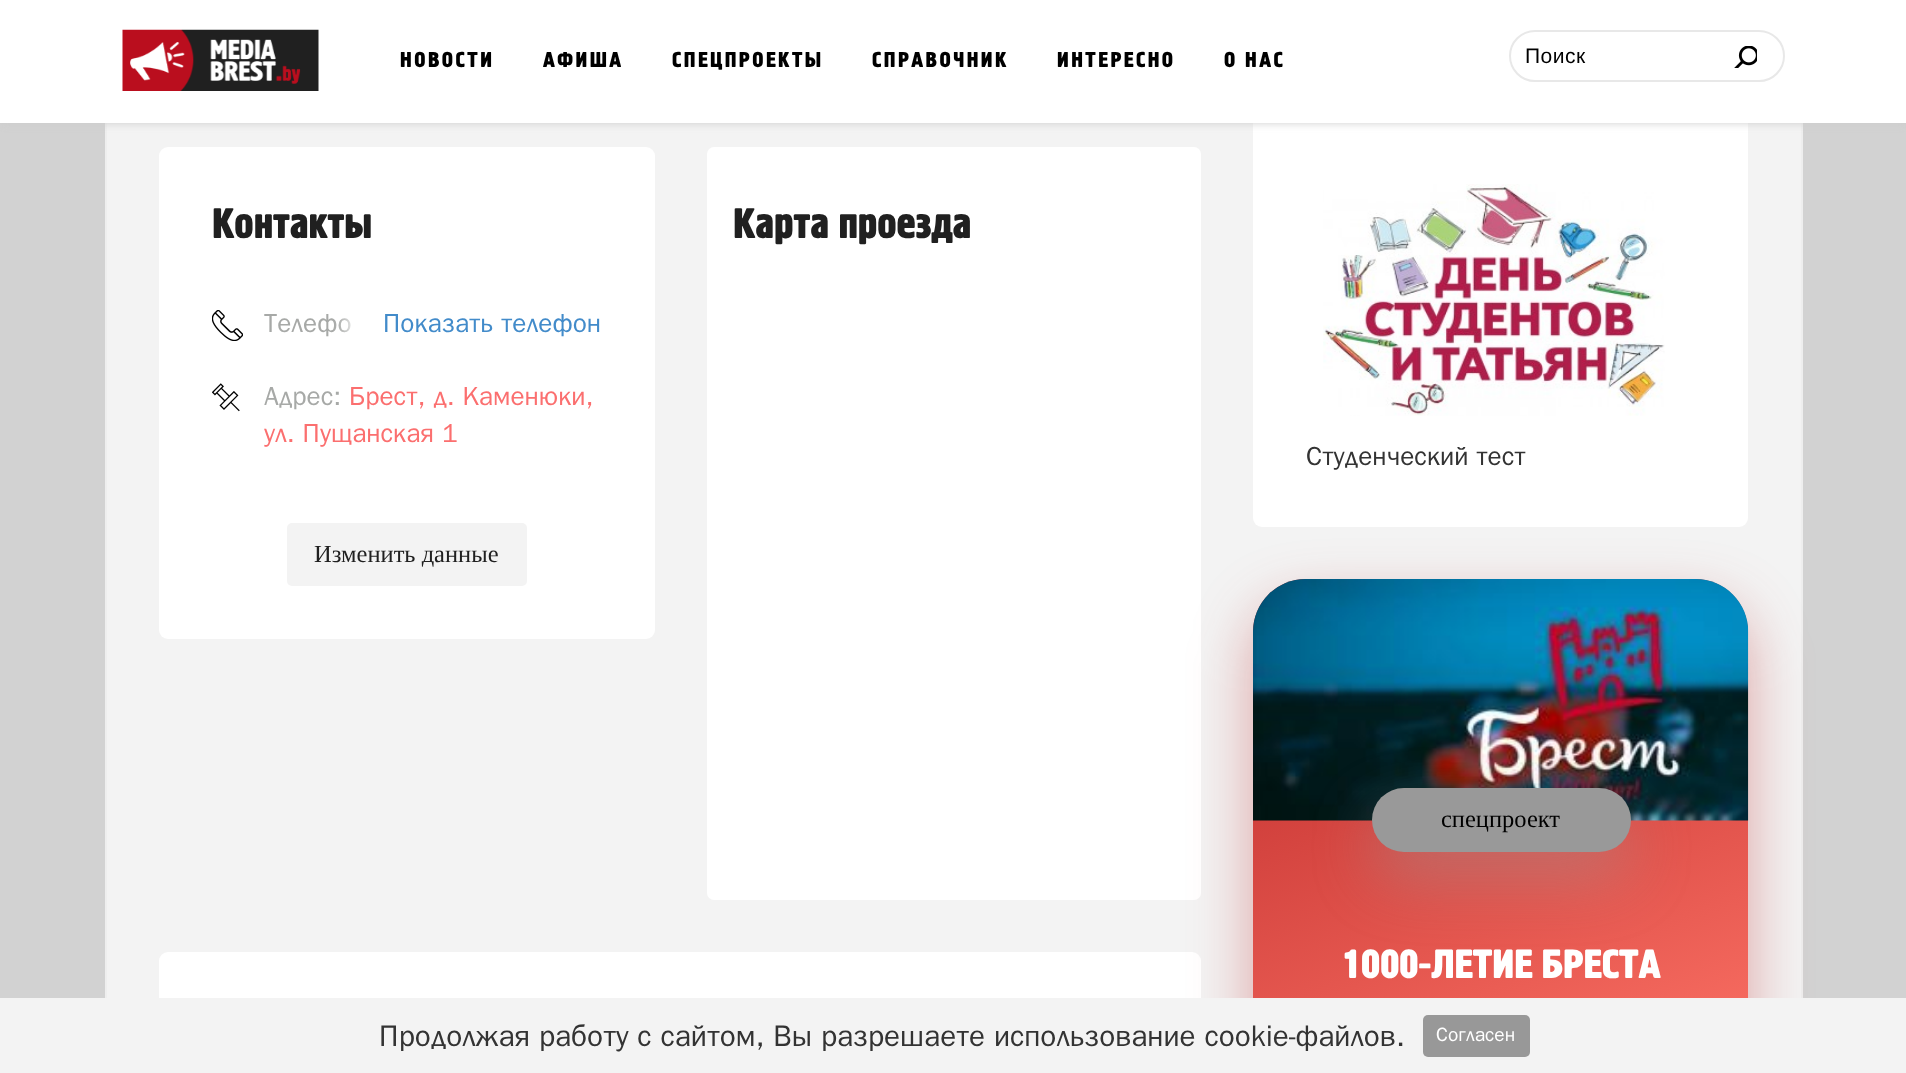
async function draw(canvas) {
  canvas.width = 1906
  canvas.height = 1073
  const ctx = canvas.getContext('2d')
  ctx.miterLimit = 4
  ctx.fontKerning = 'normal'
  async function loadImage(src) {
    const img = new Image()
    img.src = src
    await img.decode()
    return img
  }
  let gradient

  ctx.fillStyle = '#d2d2d2'
  ctx.fillRect(0, 0, 1906, 1073)
  ctx.fillStyle = '#f3f3f3'
  ctx.fillRect(107, 123, 1694, 875)
  ctx.fillStyle = '#eee'
  ctx.fillRect(1801, 123, 2, 875)
  ctx.fillRect(105, 123, 2, 875)
  ctx.fillStyle = '#fff'
  ctx.beginPath()
  ctx.roundRect(1253, 9, 495, 518, 9)
  ctx.fill()
  ctx.fillStyle = '#ccc'
  ctx.filter = 'blur(4.5px)'
  ctx.beginPath()
  ctx.rect(0, 0, 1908, 123)
  ctx.fill()
  ctx.filter = 'none'
  ctx.fillStyle = '#fff'
  ctx.fillRect(0, 0, 1906, 123)
  ctx.drawImage(await loadImage('image0.png'), 122, 29, 197, 62)
  ctx.letterSpacing = '2.5px'
  ctx.font = '21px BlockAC'
  ctx.fillStyle = '#000'
  ctx.fillText('НОВОСТИ', 400, 67)
  ctx.fillText('АФИША', 543, 67)
  ctx.fillText('СПЕЦПРОЕКТЫ', 672, 67)
  ctx.fillText('СПРАВОЧНИК', 872, 67)
  ctx.fillText('ИНТЕРЕСНО', 1057, 67)
  ctx.fillText('О НАС', 1224, 67)
  ctx.beginPath()
  ctx.roundRect(1510, 31, 274, 50, 25)
  ctx.strokeStyle = '#e8e8e8'
  ctx.lineWidth = 2
  ctx.stroke()
  ctx.letterSpacing = '0.5px'
  ctx.font = '21px Liberation Sans'
  ctx.fillText('Поиск', 1525, 63)
  ctx.drawImage(await loadImage('image1.png'), 1734, 46, 23, 22)
  ctx.fillStyle = '#fff'
  ctx.beginPath()
  ctx.roundRect(159, 147, 496, 492, 9)
  ctx.fill()
  ctx.letterSpacing = '0px'
  ctx.font = '41.5px BlockAC'
  ctx.fillStyle = '#202020'
  ctx.fillText('Контакты', 212, 238)
  ctx.drawImage(await loadImage('image2.png'), 212, 310, 31, 31)
  ctx.font = '26.25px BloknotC'
  ctx.fillStyle = '#a7a9a7'
  ctx.fillText('Телефо', 264, 332)
  ctx.fillStyle = '#fff'
  ctx.filter = 'blur(8px)'
  ctx.beginPath()
  ctx.rect(348, 305, 237, 36)
  ctx.fill()
  ctx.filter = 'none'
  ctx.fillStyle = '#428bca'
  ctx.fillText('Показать телефон', 383, 332)
  ctx.drawImage(await loadImage('image3.png'), 212, 383, 28, 29)
  ctx.fillStyle = '#a7a9a7'
  ctx.fillText('Адрес:', 264, 405)
  ctx.fillStyle = '#fb6f6f'
  ctx.fillText('Брест, д. Каменюки,', 349, 405)
  ctx.fillText('ул. Пущанская 1', 264, 442)
  ctx.fillStyle = '#f3f3f3'
  ctx.beginPath()
  ctx.roundRect(287, 523, 240, 63, 5)
  ctx.fill()
  ctx.font = '24.5px Liberation Serif'
  ctx.fillStyle = '#202020'
  ctx.fillText('Изменить данные', 314, 562)
  ctx.fillStyle = '#fff'
  ctx.beginPath()
  ctx.roundRect(707, 147, 494, 753, 7)
  ctx.fill()
  ctx.font = '41.5px BlockAC'
  ctx.fillStyle = '#202020'
  ctx.fillText('Карта проезда', 733, 238)
  ctx.fillStyle = '#fff'
  ctx.beginPath()
  ctx.roundRect(159, 952, 1042, 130, 9)
  ctx.fill()
  ctx.drawImage(await loadImage('image4.png'), 1323, 184, 342, 232)
  ctx.font = '26.25px BloknotC'
  ctx.fillStyle = '#333'
  ctx.fillText('Студенческий тест', 1306, 465)
  ctx.fillStyle = '#bb272766'
  ctx.filter = 'blur(30.5px)'
  ctx.beginPath()
  ctx.roundRect(1253, 606, 495, 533, 53)
  ctx.fill()
  ctx.filter = 'none'
  gradient = ctx.createLinearGradient(1380, 531, 1622, 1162)
  gradient.addColorStop(0, '#bb2727')
  gradient.addColorStop(1, '#ff7568')
  ctx.fillStyle = gradient
  ctx.beginPath()
  ctx.roundRect(1253, 579, 495, 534, 53)
  ctx.fill()
  ctx.drawImage(await loadImage('image5.png'), 1253, 579, 496, 242)
  ctx.fillStyle = '#99999966'
  ctx.filter = 'blur(30.5px)'
  ctx.beginPath()
  ctx.roundRect(1372, 814, 259, 65, 32.5)
  ctx.fill()
  ctx.filter = 'none'
  ctx.fillStyle = '#999'
  ctx.beginPath()
  ctx.roundRect(1372, 788, 259, 64, 32)
  ctx.fill()
  ctx.font = '24.5px Liberation Serif'
  ctx.fillStyle = '#000'
  ctx.fillText('спецпроект', 1441, 827)
  ctx.font = '39.5px BlockAC'
  ctx.fillStyle = '#fff'
  ctx.fillText('1000-ЛЕТИЕ БРЕСТА', 1342, 978)
  ctx.fillStyle = '#f3f3f3'
  ctx.fillRect(0, 998, 1906, 75)
  ctx.font = '29.75px BloknotC'
  ctx.fillStyle = '#333'
  ctx.fillText('Продолжая работу с сайтом, Вы разрешаете использование cookie-файлов.', 379, 1046)
  ctx.fillStyle = '#989898'
  ctx.beginPath()
  ctx.roundRect(1423, 1015, 107, 42, 5)
  ctx.fill()
  ctx.font = '19.25px BloknotC'
  ctx.fillStyle = '#fff'
  ctx.fillText('Согласен', 1436, 1041)
}

draw(document.querySelector('canvas'))
